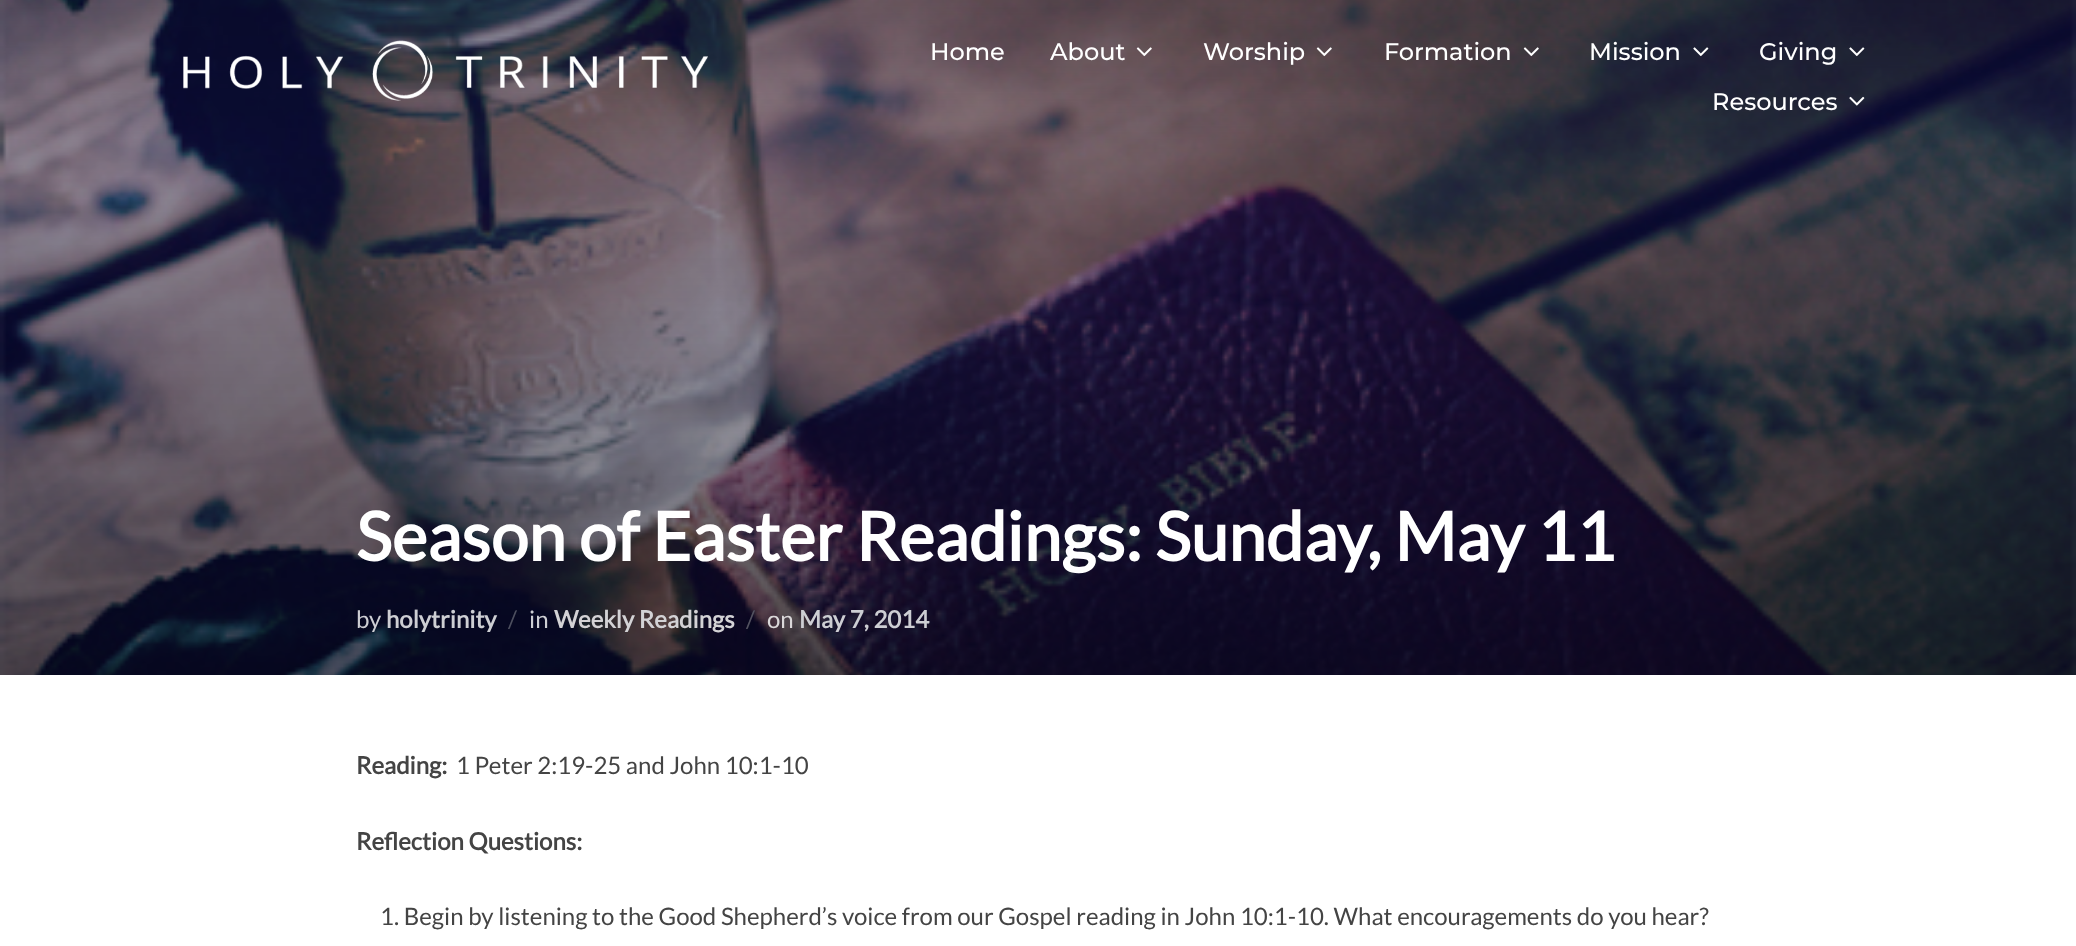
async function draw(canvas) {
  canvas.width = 2076
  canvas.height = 946
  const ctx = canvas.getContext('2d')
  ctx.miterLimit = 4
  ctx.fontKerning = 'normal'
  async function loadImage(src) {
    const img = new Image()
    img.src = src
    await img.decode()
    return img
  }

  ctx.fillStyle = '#fff'
  ctx.fillRect(0, 0, 2076, 946)
  ctx.drawImage(await loadImage('image7.png'), 0, 0, 2076, 675)
  ctx.drawImage(await loadImage('image0.png'), 183, 40, 525, 61)
  ctx.font = '500 24px Montserrat'
  ctx.fillText('Home', 930, 60)
  ctx.fillText('About', 1050, 60)
  ctx.drawImage(await loadImage('image1.png'), 1136, 47, 16, 10)
  ctx.fillText('Worship', 1203, 60)
  ctx.drawImage(await loadImage('image2.png'), 1316, 47, 16, 10)
  ctx.fillText('Formation', 1384, 60)
  ctx.drawImage(await loadImage('image3.png'), 1523, 47, 16, 10)
  ctx.fillText('Mission', 1589, 60)
  ctx.drawImage(await loadImage('image4.png'), 1693, 47, 16, 10)
  ctx.fillText('Giving', 1759, 60)
  ctx.drawImage(await loadImage('image5.png'), 1849, 47, 16, 10)
  ctx.fillText('Resources', 1712, 110)
  ctx.drawImage(await loadImage('image6.png'), 1849, 96, 16, 10)
  ctx.font = 'bold 67.5px Lato'
  ctx.fillText('Season of Easter Readings: Sunday, May 11', 356, 561)
  ctx.font = '24px Lato'
  ctx.fillStyle = '#cdced3'
  ctx.fillText('by', 356, 628)
  ctx.font = 'bold 24px Lato'
  ctx.fillText('holytrinity', 386, 628)
  ctx.font = '24px Lato'
  ctx.fillStyle = '#4d4f5f'
  ctx.fillText('/', 508, 628)
  ctx.fillStyle = '#cdced3'
  ctx.fillText('in', 529, 628)
  ctx.font = 'bold 24px Lato'
  ctx.fillStyle = '#d3d2d5'
  ctx.fillText('Weekly Readings', 554, 628)
  ctx.font = '24px Lato'
  ctx.fillStyle = '#535260'
  ctx.fillText('/', 746, 628)
  ctx.fillStyle = '#dad8d9'
  ctx.fillText('on', 767, 628)
  ctx.font = 'bold 24px Lato'
  ctx.fillStyle = '#cdced3'
  ctx.fillText('May 7, 2014', 799, 628)
  ctx.fillStyle = '#444'
  ctx.fillText('Reading:', 356, 774)
  ctx.font = '24px Lato'
  ctx.fillText('1 Peter 2:19-25 and John 10:1-10', 456, 774)
  ctx.font = 'bold 24px Lato'
  ctx.fillText('Reflection Questions:', 356, 850)
  ctx.font = '24px Lato'
  ctx.fillText('1. Begin by listening to the Good Shepherd’s voice from our Gospel reading in John 10:1-10. What encouragements do you hear?', 380, 925)
}

draw(document.querySelector('canvas'))
